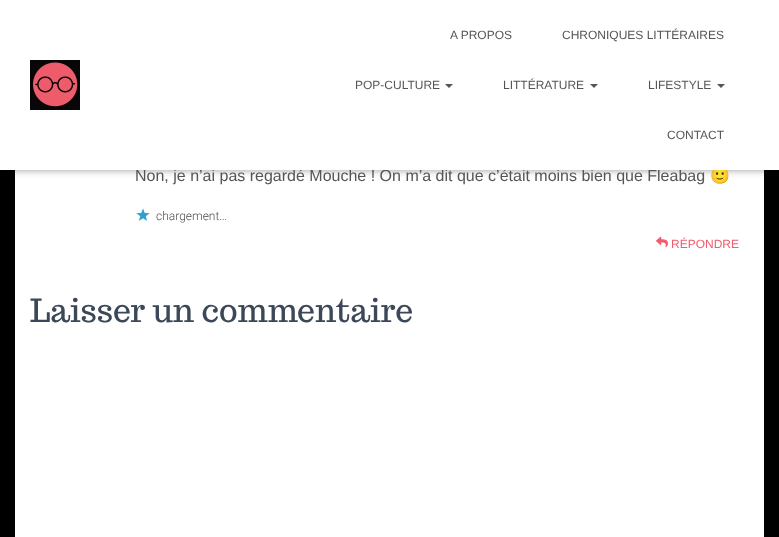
async function draw(canvas) {
  canvas.width = 779
  canvas.height = 537
  const ctx = canvas.getContext('2d')
  ctx.miterLimit = 4
  ctx.fontKerning = 'normal'
  async function loadImage(src) {
    const img = new Image()
    img.src = src
    await img.decode()
    return img
  }

  ctx.fillStyle = '#000'
  ctx.fillRect(0, 0, 779, 537)
  ctx.fillStyle = '#fff'
  ctx.fillRect(15, 170, 749, 367)
  ctx.fillStyle = '#0000001a'
  ctx.filter = 'blur(2.5px)'
  ctx.beginPath()
  ctx.rect(2, 6, 775, 166)
  ctx.fill()
  ctx.filter = 'none'
  ctx.fillStyle = '#0000001f'
  ctx.filter = 'blur(5px)'
  ctx.beginPath()
  ctx.rect(0, 1, 779, 170)
  ctx.fill()
  ctx.filter = 'none'
  ctx.fillStyle = '#0000006b'
  ctx.filter = 'blur(5px)'
  ctx.beginPath()
  ctx.rect(6, 7, 767, 158)
  ctx.fill()
  ctx.filter = 'none'
  ctx.font = '16px Liberation Sans'
  ctx.fillStyle = '#555'
  ctx.fillText('Non, je n’ai pas regardé Mouche ! On m’a dit que c’était moins bien que Fleabag', 135, 181)
  ctx.font = '16px Noto Color Emoji'
  ctx.fillText('🙂', 710, 181)
  ctx.fillStyle = '#fff'
  ctx.fillRect(0, 0, 779, 170)
  ctx.drawImage(await loadImage('image0.png'), 30, 60, 50, 50)
  ctx.font = '12px Liberation Sans'
  ctx.fillStyle = '#555'
  ctx.fillText('A PROPOS', 450, 39)
  ctx.fillText('CHRONIQUES LITTÉRAIRES', 562, 39)
  ctx.fillText('POP-CULTURE', 355, 89)
  ctx.beginPath()
  ctx.moveTo(445, 84)
  ctx.lineTo(453, 84)
  ctx.lineTo(449, 88)
  ctx.closePath()
  ctx.fill()
  ctx.fillText('LITTÉRATURE', 503, 89)
  ctx.beginPath()
  ctx.moveTo(590, 84)
  ctx.lineTo(598, 84)
  ctx.lineTo(594, 88)
  ctx.closePath()
  ctx.fill()
  ctx.fillText('LIFESTYLE', 648, 89)
  ctx.beginPath()
  ctx.moveTo(717, 84)
  ctx.lineTo(725, 84)
  ctx.lineTo(721, 88)
  ctx.closePath()
  ctx.fill()
  ctx.fillText('CONTACT', 667, 139)
  ctx.drawImage(await loadImage('image1.png'), 136, 208, 14, 13)
  ctx.font = '300 12px Roboto'
  ctx.fillStyle = '#4e4e4e'
  ctx.fillText('chargement…', 156, 220)
  ctx.drawImage(await loadImage('image2.png'), 656, 236, 12, 12)
  ctx.font = '12px Liberation Sans'
  ctx.fillStyle = '#ef5c6c'
  ctx.fillText('RÉPONDRE', 671, 248)
  ctx.font = '32px Trocchi'
  ctx.fillStyle = '#3c4858'
  ctx.fillText('Laisser un commentaire', 30, 322)
}

draw(document.querySelector('canvas'))
